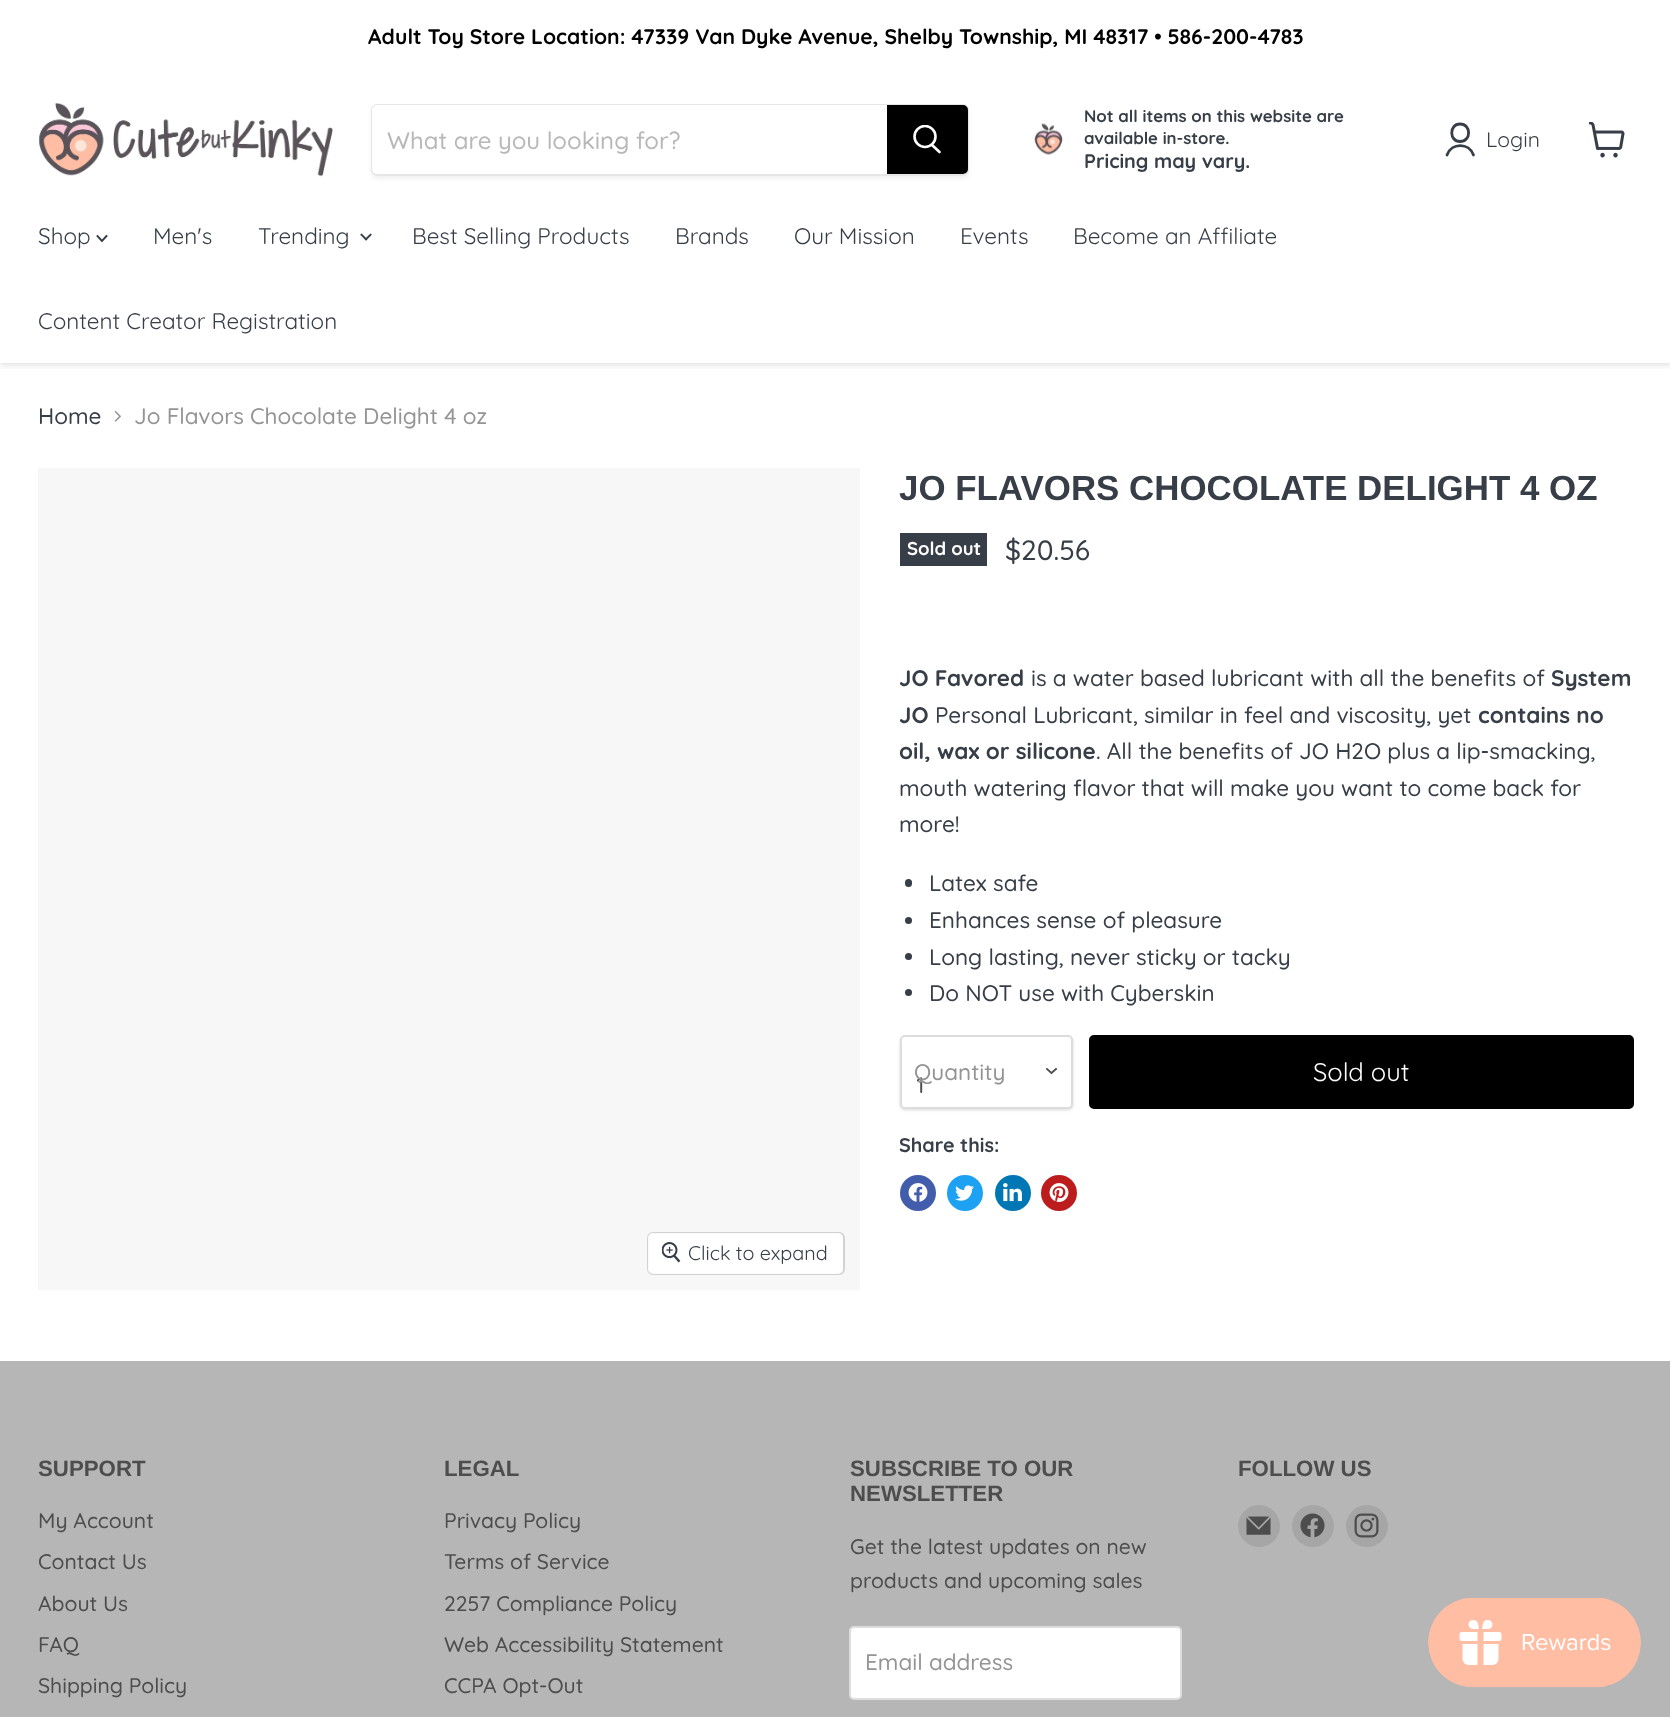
async function draw(canvas) {
  canvas.width = 1670
  canvas.height = 1717
  const ctx = canvas.getContext('2d')
  ctx.miterLimit = 4
  ctx.fontKerning = 'normal'
  async function loadImage(src) {
    const img = new Image()
    img.src = src
    await img.decode()
    return img
  }

  ctx.fillStyle = '#fff'
  ctx.fillRect(0, 0, 1670, 1717)
  ctx.save()
  ctx.beginPath()
  ctx.rect(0, 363, 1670, 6)
  ctx.clip()
  ctx.fillStyle = '#80808040'
  ctx.filter = 'blur(3px)'
  ctx.beginPath()
  ctx.rect(0, 74, 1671, 291)
  ctx.fill()
  ctx.filter = 'none'
  ctx.restore()
  ctx.fillRect(0, 70, 1670, 2)
  ctx.font = 'bold 21.1px Quicksand'
  ctx.fillStyle = '#000'
  ctx.fillText('Adult Toy Store Location: 47339 Van Dyke Avenue, Shelby Township, MI 48317 • 586-200-4783', 368, 44)
  ctx.drawImage(await loadImage('image0.png'), 39, 102, 294, 75)
  ctx.save()
  ctx.beginPath()
  ctx.moveTo(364, 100)
  ctx.lineTo(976, 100)
  ctx.lineTo(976, 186)
  ctx.lineTo(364, 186)
  ctx.closePath()
  ctx.moveTo(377, 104)
  ctx.lineTo(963, 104)
  ctx.bezierCurveTo(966.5, 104, 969, 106.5, 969, 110)
  ctx.lineTo(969, 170)
  ctx.bezierCurveTo(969, 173.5, 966.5, 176, 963, 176)
  ctx.lineTo(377, 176)
  ctx.bezierCurveTo(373.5, 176, 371, 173.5, 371, 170)
  ctx.lineTo(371, 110)
  ctx.bezierCurveTo(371, 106.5, 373.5, 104, 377, 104)
  ctx.closePath()
  ctx.clip('evenodd')
  ctx.fillStyle = '#8080801c'
  ctx.filter = 'blur(2px)'
  ctx.beginPath()
  ctx.roundRect(371, 107, 598, 72, 6)
  ctx.fill()
  ctx.filter = 'none'
  ctx.restore()
  ctx.beginPath()
  ctx.roundRect(372, 105, 596, 70, 5)
  ctx.strokeStyle = '#80808033'
  ctx.lineWidth = 2
  ctx.stroke()
  ctx.fillStyle = '#fff'
  ctx.beginPath()
  ctx.roundRect(372, 105, 515, 69, [5, 0, 0, 5])
  ctx.fill()
  ctx.font = '500 24px Quicksand'
  ctx.fillStyle = '#b8b8b8'
  ctx.fillText('What are you looking for?', 387, 149)
  ctx.fillStyle = '#000'
  ctx.beginPath()
  ctx.roundRect(888, 106, 79, 67, [0, 4, 4, 0])
  ctx.fill()
  ctx.strokeStyle = '#000'
  ctx.stroke()
  ctx.beginPath()
  ctx.moveTo(939.5, 152)
  ctx.lineTo(932, 145)
  ctx.strokeStyle = '#fff'
  ctx.lineWidth = 2.6
  ctx.lineCap = 'round'
  ctx.stroke()
  ctx.save()
  ctx.beginPath()
  ctx.rect(912, 125, 30, 31)
  ctx.clip()
  ctx.beginPath()
  ctx.arc(925, 136.5, 10.5, 0, 2 * Math.PI)
  ctx.stroke()
  ctx.restore()
  ctx.drawImage(await loadImage('image1.png'), 1033, 123, 30, 32)
  ctx.font = 'bold 16.75px Quicksand'
  ctx.fillStyle = '#383e47'
  ctx.fillText('Not all items on this website are', 1084, 122)
  ctx.fillText('available in-store.', 1084, 144)
  ctx.font = 'bold 19.75px Quicksand'
  ctx.fillText('Pricing may vary.', 1084, 168)
  ctx.beginPath()
  ctx.moveTo(1460, 141.5)
  ctx.bezierCurveTo(1471.5, 141.5, 1471.5, 124, 1460, 124)
  ctx.bezierCurveTo(1449, 124, 1449, 141.5, 1460, 141.5)
  ctx.closePath()
  ctx.moveTo(1473.5, 155)
  ctx.bezierCurveTo(1469, 142.5, 1451.5, 142.5, 1447, 155)
  ctx.strokeStyle = '#383e47'
  ctx.lineWidth = 2.8
  ctx.lineJoin = 'round'
  ctx.stroke()
  ctx.font = '21.1px Quicksand'
  ctx.fillText('Login', 1486, 147)
  ctx.drawImage(await loadImage('image2.png'), 1589, 122, 36, 36)
  ctx.font = '22.5px Quicksand'
  ctx.fillText('Shop', 38, 244)
  ctx.beginPath()
  ctx.moveTo(102, 241)
  ctx.lineTo(106.5, 236)
  ctx.moveTo(102, 241)
  ctx.lineTo(97.5, 236)
  ctx.lineWidth = 1.9
  ctx.lineCap = 'square'
  ctx.lineJoin = 'miter'
  ctx.stroke()
  ctx.fillText('Men\'s', 153, 244)
  ctx.fillText('Trending', 258, 244)
  ctx.drawImage(await loadImage('image3.png'), 360, 233, 12, 8)
  ctx.fillText('Best Selling Products', 412, 244)
  ctx.fillText('Brands', 675, 244)
  ctx.fillText('Our Mission', 794, 244)
  ctx.fillText('Events', 960, 244)
  ctx.fillText('Become an Affiliate', 1073, 244)
  ctx.fillText('Content Creator Registration', 38, 329)
  ctx.font = '500 22.5px Quicksand'
  ctx.fillText('Home', 38, 424)
  ctx.drawImage(await loadImage('image4.png'), 114, 410, 7, 12)
  ctx.fillStyle = '#949494'
  ctx.fillText('Jo Flavors Chocolate Delight 4 oz', 134, 424)
  ctx.font = 'bold 34.9px Liberation Sans'
  ctx.fillStyle = '#383e47'
  ctx.fillText('JO FLAVORS CHOCOLATE DELIGHT 4 OZ', 899, 500)
  ctx.fillRect(900, 533, 87, 33)
  ctx.font = 'bold 18.5px Quicksand'
  ctx.fillStyle = '#fff'
  ctx.fillText('Sold out', 907, 555)
  ctx.font = '500 28px Quicksand'
  ctx.fillStyle = '#383e47'
  ctx.fillText('$20.56', 1005, 560)
  ctx.font = 'bold 22.5px Quicksand'
  ctx.fillText('JO Favored', 899, 686)
  ctx.font = '500 22.5px Quicksand'
  ctx.fillText('is a water based lubricant with all the benefits of', 1031, 686)
  ctx.font = 'bold 22.5px Quicksand'
  ctx.fillText('System', 1551, 686)
  ctx.fillText('JO', 899, 723)
  ctx.font = '500 22.5px Quicksand'
  ctx.fillText('Personal Lubricant, similar in feel and viscosity, yet', 935, 723)
  ctx.font = 'bold 22.5px Quicksand'
  ctx.fillText('contains no', 1478, 723)
  ctx.fillText('oil, wax or silicone', 899, 759)
  ctx.font = '500 22.5px Quicksand'
  ctx.fillText('. All the benefits of JO H2O plus a lip-smacking,', 1096, 759)
  ctx.fillText('mouth watering flavor that will make you want to come back for', 899, 796)
  ctx.fillText('more!', 899, 832)
  ctx.beginPath()
  ctx.roundRect(905, 879, 7, 8, 3.5)
  ctx.fill()
  ctx.fillText('Latex safe', 929, 891)
  ctx.beginPath()
  ctx.arc(908.5, 920.5, 3.5, 0, 2 * Math.PI)
  ctx.fill()
  ctx.fillText('Enhances sense of pleasure', 929, 928)
  ctx.beginPath()
  ctx.arc(908.5, 956.5, 3.5, 0, 2 * Math.PI)
  ctx.fill()
  ctx.fillText('Long lasting, never sticky or tacky', 929, 965)
  ctx.beginPath()
  ctx.arc(908.5, 992.5, 3.5, 0, 2 * Math.PI)
  ctx.fill()
  ctx.fillText('Do NOT use with Cyberskin', 929, 1001)
  ctx.fillStyle = '#00000026'
  ctx.filter = 'blur(1.5px)'
  ctx.beginPath()
  ctx.roundRect(900, 1037, 173, 73, 5)
  ctx.fill()
  ctx.filter = 'none'
  ctx.fillStyle = '#fff'
  ctx.beginPath()
  ctx.roundRect(901, 1036, 171, 72, 4)
  ctx.fill()
  ctx.strokeStyle = '#ddd'
  ctx.lineWidth = 2
  ctx.stroke()
  ctx.save()
  ctx.beginPath()
  ctx.rect(917, 1073, 112, 25)
  ctx.clip()
  ctx.fillStyle = '#4d4d4d'
  ctx.fillText('1', 916, 1093)
  ctx.restore()
  ctx.fillStyle = '#949494'
  ctx.fillText('Quantity', 914, 1080)
  ctx.beginPath()
  ctx.moveTo(1051.5, 1073)
  ctx.lineTo(1056, 1069)
  ctx.moveTo(1051.5, 1073)
  ctx.lineTo(1047, 1069)
  ctx.strokeStyle = '#4d4d4d'
  ctx.lineWidth = 1.9
  ctx.stroke()
  ctx.fillStyle = '#000'
  ctx.beginPath()
  ctx.roundRect(1090, 1036, 543, 72, 4)
  ctx.fill()
  ctx.strokeStyle = '#000'
  ctx.lineWidth = 2
  ctx.stroke()
  ctx.font = '25.5px Quicksand'
  ctx.fillStyle = '#fff'
  ctx.fillText('Sold out', 1313, 1081)
  ctx.font = 'bold 19.75px Quicksand'
  ctx.fillStyle = '#383e47'
  ctx.fillText('Share this:', 899, 1152)
  ctx.fillStyle = '#425dab'
  ctx.beginPath()
  ctx.arc(918, 1193, 18, 0, 2 * Math.PI)
  ctx.fill()
  ctx.drawImage(await loadImage('image5.png'), 908, 1183, 20, 19)
  ctx.fillStyle = '#1da1f2'
  ctx.beginPath()
  ctx.arc(965, 1193, 18, 0, 2 * Math.PI)
  ctx.fill()
  ctx.drawImage(await loadImage('image6.png'), 955, 1185, 19, 16)
  ctx.fillStyle = '#0077b5'
  ctx.beginPath()
  ctx.arc(1013, 1193, 18, 0, 2 * Math.PI)
  ctx.fill()
  ctx.drawImage(await loadImage('image7.png'), 1003, 1183, 19, 19)
  ctx.fillStyle = '#bd1c1c'
  ctx.beginPath()
  ctx.arc(1059, 1193, 18, 0, 2 * Math.PI)
  ctx.fill()
  ctx.drawImage(await loadImage('image8.png'), 1049, 1183, 20, 19)
  ctx.fillStyle = '#f7f7f8'
  ctx.fillRect(38, 468, 822, 822)
  ctx.beginPath()
  ctx.roundRect(648, 1233, 196, 41, 5)
  ctx.strokeStyle = '#d2d2d3'
  ctx.stroke()
  ctx.fillStyle = '#ffffffe6'
  ctx.beginPath()
  ctx.roundRect(648, 1233, 195, 41, 5)
  ctx.fill()
  ctx.drawImage(await loadImage('image9.png'), 662, 1242, 19, 21)
  ctx.font = '19.75px Quicksand'
  ctx.fillStyle = '#383e47'
  ctx.fillText('Click to expand', 688, 1260)
  ctx.fillStyle = '#b6b6b6'
  ctx.fillRect(0, 1361, 1670, 356)
  ctx.font = 'bold 22.25px Liberation Sans'
  ctx.fillStyle = '#4d4d4d'
  ctx.fillText('SUPPORT', 38, 1476)
  ctx.font = '500 21.1px Quicksand'
  ctx.fillText('My Account', 38, 1528)
  ctx.fillText('Contact Us', 38, 1569)
  ctx.fillText('About Us', 38, 1611)
  ctx.fillText('FAQ', 38, 1652)
  ctx.fillText('Shipping Policy', 38, 1693)
  ctx.font = 'bold 22.25px Liberation Sans'
  ctx.fillText('LEGAL', 444, 1476)
  ctx.font = '500 21.1px Quicksand'
  ctx.fillText('Privacy Policy', 444, 1528)
  ctx.fillText('Terms of Service', 444, 1569)
  ctx.fillText('2257 Compliance Policy', 444, 1611)
  ctx.fillText('Web Accessibility Statement', 444, 1652)
  ctx.fillText('CCPA Opt-Out', 444, 1693)
  ctx.font = 'bold 22.25px Liberation Sans'
  ctx.fillText('SUBSCRIBE TO OUR', 850, 1476)
  ctx.fillText('NEWSLETTER', 850, 1501)
  ctx.font = '500 21.1px Quicksand'
  ctx.fillText('Get the latest updates on new', 850, 1554)
  ctx.fillText('products and upcoming sales', 850, 1588)
  ctx.fillStyle = '#fff'
  ctx.beginPath()
  ctx.roundRect(850, 1627, 331, 72, 4)
  ctx.fill()
  ctx.strokeStyle = '#ddd'
  ctx.stroke()
  ctx.font = '500 22.5px Quicksand'
  ctx.fillStyle = '#949494'
  ctx.fillText('Email address', 865, 1670)
  ctx.font = 'bold 22.25px Liberation Sans'
  ctx.fillStyle = '#4d4d4d'
  ctx.fillText('FOLLOW US', 1238, 1476)
  ctx.fillStyle = '#a6a6a6'
  ctx.beginPath()
  ctx.arc(1259, 1526, 21, 0, 2 * Math.PI)
  ctx.fill()
  ctx.drawImage(await loadImage('image10.png'), 1246, 1516, 25, 19)
  ctx.beginPath()
  ctx.arc(1313, 1526, 21, 0, 2 * Math.PI)
  ctx.fill()
  ctx.drawImage(await loadImage('image11.png'), 1300, 1513, 25, 25)
  ctx.beginPath()
  ctx.arc(1367, 1526, 21, 0, 2 * Math.PI)
  ctx.fill()
  ctx.drawImage(await loadImage('image12.png'), 1354, 1513, 25, 25)
  ctx.drawImage(await loadImage('image13.png'), 1428, 1597, 213, 91)
}

draw(document.querySelector('canvas'))
